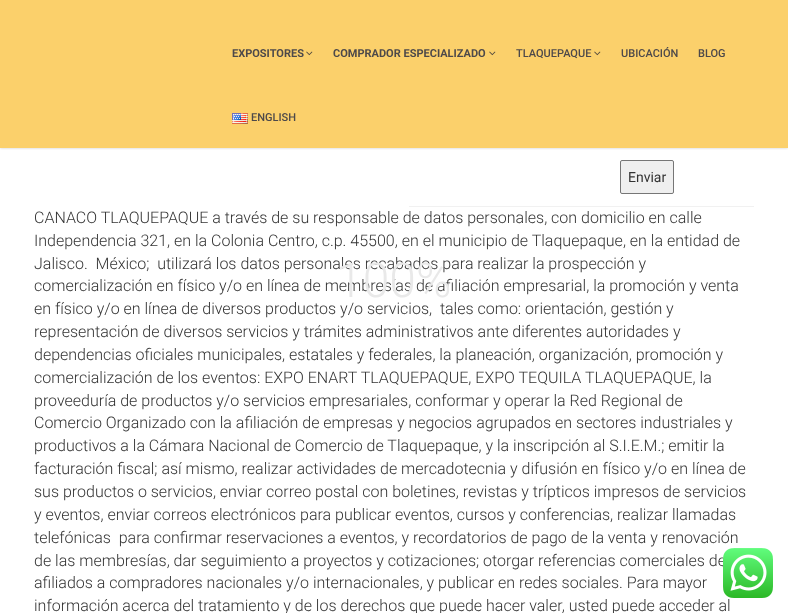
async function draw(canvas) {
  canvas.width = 788
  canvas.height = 613
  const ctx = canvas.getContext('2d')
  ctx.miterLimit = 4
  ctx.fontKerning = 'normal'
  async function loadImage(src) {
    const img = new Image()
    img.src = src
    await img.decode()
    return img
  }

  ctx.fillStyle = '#fff'
  ctx.fillRect(0, 0, 788, 613)
  ctx.fillStyle = '#fbd06b'
  ctx.fillRect(0, 0, 788, 148)
  ctx.save()
  ctx.beginPath()
  ctx.rect(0, 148, 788, 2)
  ctx.clip()
  ctx.fillStyle = '#1a1a1a38'
  ctx.filter = 'blur(1.5px)'
  ctx.beginPath()
  ctx.rect(0, 0, 788, 148)
  ctx.fill()
  ctx.filter = 'none'
  ctx.restore()
  ctx.font = 'bold 11px Roboto'
  ctx.fillStyle = '#4d494a'
  ctx.fillText('EXPOSITORES', 232, 57)
  ctx.drawImage(await loadImage('image0.png'), 306, 51, 7, 5)
  ctx.fillText('COMPRADOR ESPECIALIZADO', 333, 57)
  ctx.drawImage(await loadImage('image0.png'), 489, 51, 7, 5)
  ctx.font = '500 11px Roboto'
  ctx.fillText('TLAQUEPAQUE', 516, 57)
  ctx.drawImage(await loadImage('image0.png'), 594, 51, 7, 5)
  ctx.fillText('UBICACIÓN', 621, 57)
  ctx.fillText('BLOG', 698, 57)
  ctx.drawImage(await loadImage('image1.png'), 232, 113, 16, 11)
  ctx.fillText('ENGLISH', 251, 121)
  ctx.fillStyle = '#f1f1f1'
  ctx.fillRect(409, 206, 345, 1)
  ctx.fillStyle = '#efefef'
  ctx.beginPath()
  ctx.roundRect(620.5, 160.5, 53, 33, 1.5)
  ctx.fill()
  ctx.strokeStyle = '#767676'
  ctx.stroke()
  ctx.font = '14px Roboto'
  ctx.fillStyle = '#333'
  ctx.fillText('Enviar', 628, 182)
  ctx.font = '300 16px Roboto'
  ctx.fillText('CANACO TLAQUEPAQUE a través de su responsable de datos personales, con domicilio en calle', 34, 223)
  ctx.fillText('Independencia 321, en la Colonia Centro, c.p. 45500, en el municipio de Tlaquepaque, en la entidad de', 34, 246)
  ctx.fillText('Jalisco.  México;  utilizará los datos personales recabados para realizar la prospección y', 34, 269)
  ctx.fillText('comercialización en físico y/o en línea de membresías de afiliación empresarial, la promoción y venta', 34, 291)
  ctx.fillText('en físico y/o en línea de diversos productos y/o servicios,  tales como: orientación, gestión y', 34, 314)
  ctx.fillText('representación de diversos servicios y trámites administrativos ante diferentes autoridades y', 34, 337)
  ctx.fillText('dependencias oficiales municipales, estatales y federales, la planeación, organización, promoción y', 34, 360)
  ctx.fillText('comercialización de los eventos: EXPO ENART TLAQUEPAQUE, EXPO TEQUILA TLAQUEPAQUE, la', 34, 383)
  ctx.fillText('proveeduría de productos y/o servicios empresariales, conformar y operar la Red Regional de', 34, 406)
  ctx.fillText('Comercio Organizado con la afiliación de empresas y negocios agrupados en sectores industriales y', 34, 428)
  ctx.fillText('productivos a la Cámara Nacional de Comercio de Tlaquepaque, y la inscripción al S.I.E.M.; emitir la', 34, 451)
  ctx.fillText('facturación fiscal; así mismo, realizar actividades de mercadotecnia y difusión en físico y/o en línea de', 34, 474)
  ctx.fillText('sus productos o servicios, enviar correo postal con boletines, revistas y trípticos impresos de servicios', 34, 497)
  ctx.fillText('y eventos, enviar correos electrónicos para publicar eventos, cursos y conferencias, realizar llamadas', 34, 520)
  ctx.fillText('telefónicas  para confirmar reservaciones a eventos, y recordatorios de pago de la venta y renovación', 34, 543)
  ctx.fillText('de las membresías, dar seguimiento a proyectos y cotizaciones; otorgar referencias comerciales de', 34, 566)
  ctx.fillText('afiliados a compradores nacionales y/o internacionales, y publicar en redes sociales. Para mayor', 34, 588)
  ctx.fillText('información acerca del tratamiento y de los derechos que puede hacer valer, usted puede acceder al', 34, 611)
  ctx.font = '300 48px Roboto'
  ctx.fillStyle = '#e9e9e9'
  ctx.fillText('100%', 336, 297)
  ctx.drawImage(await loadImage('image2.png'), 723, 548, 50, 50)
}

draw(document.querySelector('canvas'))
